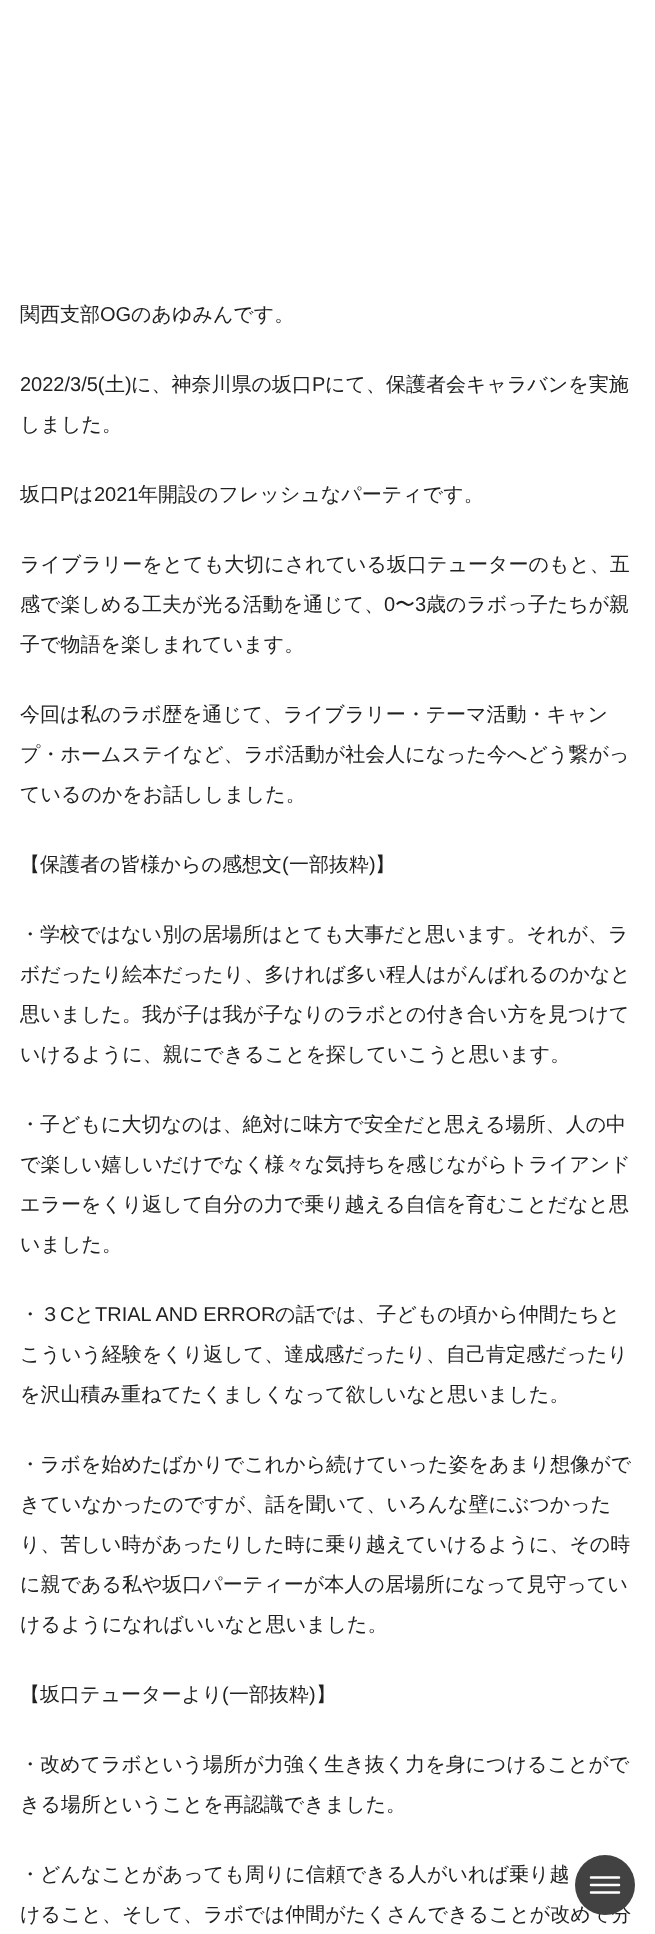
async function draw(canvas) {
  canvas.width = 655
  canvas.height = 1934
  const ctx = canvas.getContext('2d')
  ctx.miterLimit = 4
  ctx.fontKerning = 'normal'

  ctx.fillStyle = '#fff'
  ctx.fillRect(0, 0, 655, 1934)
  ctx.font = '500 20px WenQuanYi Zen Hei'
  ctx.fillStyle = '#212121'
  ctx.fillText('関西支部', 20, 321)
  ctx.font = '20px Liberation Sans'
  ctx.fillText('OG', 100, 321)
  ctx.font = '500 20px WenQuanYi Zen Hei'
  ctx.fillText('のあゆみんです。', 131, 321)
  ctx.font = '20px Liberation Sans'
  ctx.fillText('2022/3/5(', 20, 391)
  ctx.font = '500 20px WenQuanYi Zen Hei'
  ctx.fillText('土', 105, 391)
  ctx.font = '20px Liberation Sans'
  ctx.fillText(')', 125, 391)
  ctx.font = '500 20px WenQuanYi Zen Hei'
  ctx.fillText('に、神奈川県の坂口', 131, 391)
  ctx.font = '20px Liberation Sans'
  ctx.fillText('P', 312, 391)
  ctx.font = '500 20px WenQuanYi Zen Hei'
  ctx.fillText('にて、保護者会キャラバンを実施', 325, 391)
  ctx.fillText('しました。', 20, 431)
  ctx.fillText('坂口', 20, 501)
  ctx.font = '20px Liberation Sans'
  ctx.fillText('P', 60, 501)
  ctx.font = '500 20px WenQuanYi Zen Hei'
  ctx.fillText('は', 73, 501)
  ctx.font = '20px Liberation Sans'
  ctx.fillText('2021', 94, 501)
  ctx.font = '500 20px WenQuanYi Zen Hei'
  ctx.fillText('年開設のフレッシュなパーティです。', 138, 501)
  ctx.fillText('ライブラリーをとても大切にされている坂口テューターのもと、五', 20, 571)
  ctx.fillText('感で楽しめる工夫が光る活動を通じて、', 20, 611)
  ctx.font = '20px Liberation Sans'
  ctx.fillText('0', 384, 611)
  ctx.font = '500 20px WenQuanYi Zen Hei'
  ctx.fillText('〜', 395, 611)
  ctx.font = '20px Liberation Sans'
  ctx.fillText('3', 415, 611)
  ctx.font = '500 20px WenQuanYi Zen Hei'
  ctx.fillText('歳のラボっ子たちが親', 426, 611)
  ctx.fillText('子で物語を楽しまれています。', 20, 651)
  ctx.fillText('今回は私のラボ歴を通じて、ライブラリー・テーマ活動・キャン', 20, 721)
  ctx.fillText('プ・ホームステイなど、ラボ活動が社会人になった今へどう繋がっ', 20, 761)
  ctx.fillText('ているのかをお話ししました。', 20, 801)
  ctx.fillText('【保護者の皆様からの感想文', 20, 871)
  ctx.font = '20px Liberation Sans'
  ctx.fillText('(', 282, 871)
  ctx.font = '500 20px WenQuanYi Zen Hei'
  ctx.fillText('一部抜粋', 289, 871)
  ctx.font = '20px Liberation Sans'
  ctx.fillText(')', 369, 871)
  ctx.font = '500 20px WenQuanYi Zen Hei'
  ctx.fillText('】', 375, 871)
  ctx.fillText('・学校ではない別の居場所はとても大事だと思います。それが、ラ', 20, 941)
  ctx.fillText('ボだったり絵本だったり、多ければ多い程人はがんばれるのかなと', 20, 981)
  ctx.fillText('思いました。我が子は我が子なりのラボとの付き合い方を見つけて', 20, 1021)
  ctx.fillText('いけるように、親にできることを探していこうと思います。', 20, 1061)
  ctx.fillText('・子どもに大切なのは、絶対に味方で安全だと思える場所、人の中', 20, 1131)
  ctx.fillText('で楽しい嬉しいだけでなく様々な気持ちを感じながらトライアンド', 20, 1171)
  ctx.fillText('エラーをくり返して自分の力で乗り越える自信を育むことだなと思', 20, 1211)
  ctx.fillText('いました。', 20, 1251)
  ctx.fillText('・３', 20, 1321)
  ctx.font = '20px Liberation Sans'
  ctx.fillText('C', 60, 1321)
  ctx.font = '500 20px WenQuanYi Zen Hei'
  ctx.fillText('と', 74, 1321)
  ctx.font = '20px Liberation Sans'
  ctx.fillText('TRIAL AND ERROR', 95, 1321)
  ctx.font = '500 20px WenQuanYi Zen Hei'
  ctx.fillText('の話では、子どもの頃から仲間たちと', 275, 1321)
  ctx.fillText('こういう経験をくり返して、達成感だったり、自己肯定感だったり', 20, 1361)
  ctx.fillText('を沢山積み重ねてたくましくなって欲しいなと思いました。', 20, 1401)
  ctx.fillText('・ラボを始めたばかりでこれから続けていった姿をあまり想像がで', 20, 1471)
  ctx.fillText('きていなかったのですが、話を聞いて、いろんな壁にぶつかった', 20, 1511)
  ctx.fillText('り、苦しい時があったりした時に乗り越えていけるように、その時', 20, 1551)
  ctx.fillText('に親である私や坂口パーティーが本人の居場所になって見守ってい', 20, 1591)
  ctx.fillText('けるようになればいいなと思いました。', 20, 1631)
  ctx.fillText('【坂口テューターより', 20, 1701)
  ctx.font = '20px Liberation Sans'
  ctx.fillText('(', 222, 1701)
  ctx.font = '500 20px WenQuanYi Zen Hei'
  ctx.fillText('一部抜粋', 229, 1701)
  ctx.font = '20px Liberation Sans'
  ctx.fillText(')', 309, 1701)
  ctx.font = '500 20px WenQuanYi Zen Hei'
  ctx.fillText('】', 316, 1701)
  ctx.fillText('・改めてラボという場所が力強く生き抜く力を身につけることがで', 20, 1771)
  ctx.fillText('きる場所ということを再認識できました。', 20, 1811)
  ctx.fillText('・どんなことがあっても周りに信頼できる人がいれば乗り越', 20, 1881)
  ctx.fillText('けること、そして、ラボでは仲間がたくさんできることが改めて分', 20, 1921)
  ctx.fillStyle = '#424242'
  ctx.beginPath()
  ctx.arc(605, 1885, 30, 0, 2 * Math.PI)
  ctx.fill()
  ctx.beginPath()
  ctx.moveTo(591, 1877.5)
  ctx.lineTo(619, 1877.5)
  ctx.moveTo(591, 1885)
  ctx.lineTo(619, 1885)
  ctx.moveTo(591, 1892.5)
  ctx.lineTo(619, 1892.5)
  ctx.strokeStyle = '#fff'
  ctx.lineWidth = 2.5
  ctx.lineCap = 'round'
  ctx.stroke()
}

draw(document.querySelector('canvas'))
